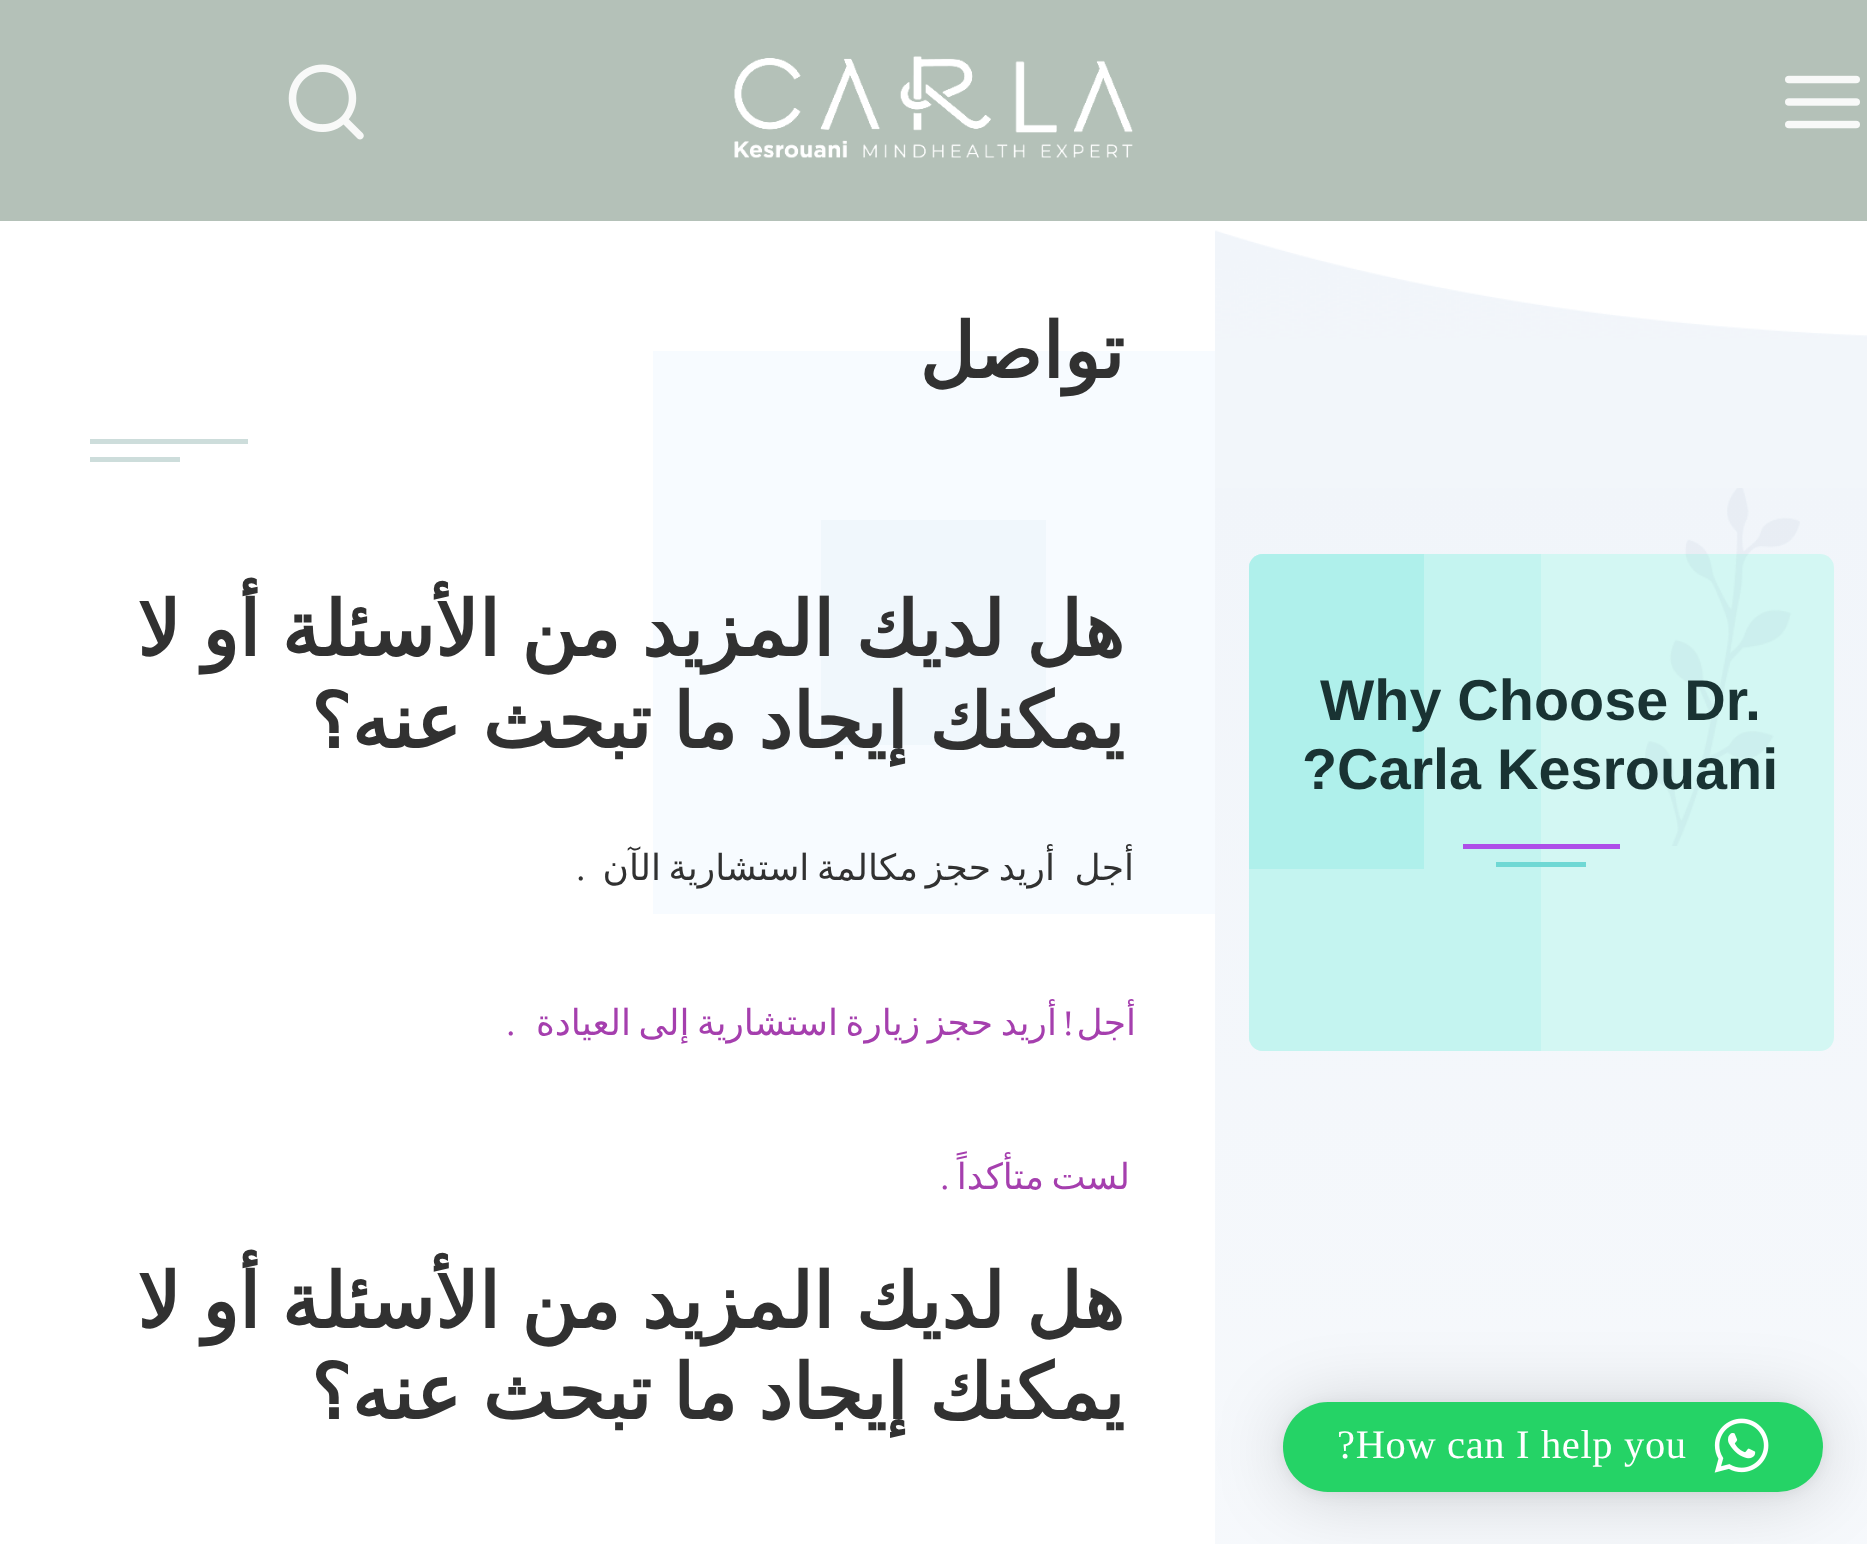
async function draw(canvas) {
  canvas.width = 1867
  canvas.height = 1544
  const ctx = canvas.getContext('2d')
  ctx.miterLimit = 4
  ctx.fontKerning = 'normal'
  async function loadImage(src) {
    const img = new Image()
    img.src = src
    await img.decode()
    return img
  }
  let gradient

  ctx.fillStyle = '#fff'
  ctx.fillRect(0, 0, 1867, 1544)
  ctx.fillStyle = '#b4c1b8'
  ctx.fillRect(0, 0, 1867, 221)
  ctx.drawImage(await loadImage('image0.png'), 1785, 75, 75, 54)
  ctx.drawImage(await loadImage('image1.png'), 734, 56, 399, 102)
  ctx.drawImage(await loadImage('image2.png'), 288, 64, 76, 76)
  gradient = ctx.createLinearGradient(1541, 486, 1541, 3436)
  gradient.addColorStop(0, '#f1f5fa')
  gradient.addColorStop(1, '#fff')
  ctx.fillStyle = gradient
  ctx.fillRect(1215, 488, 652, 1056)
  ctx.drawImage(await loadImage('image3.png'), 1215, 230, 652, 258)
  ctx.fillStyle = '#d3f7f3'
  ctx.beginPath()
  ctx.roundRect(1249, 554, 585, 497, 14)
  ctx.fill()
  ctx.drawImage(await loadImage('image4.png'), 1645, 488, 155, 358)
  ctx.fillStyle = '#c4f4f0'
  ctx.beginPath()
  ctx.roundRect(1249, 554, 292, 497, [14, 0, 0, 14])
  ctx.fill()
  ctx.fillStyle = '#aff0eb'
  ctx.beginPath()
  ctx.roundRect(1249, 554, 175, 315, [14, 0, 0, 0])
  ctx.fill()
  ctx.font = 'bold 57.5px Liberation Sans'
  ctx.fillStyle = '#193333'
  ctx.fillText('Why Choose Dr.', 1320, 720)
  ctx.fillText('?Carla Kesrouani', 1302, 789)
  ctx.fillStyle = '#ae4ee8'
  ctx.fillRect(1463, 844, 157, 5)
  ctx.fillStyle = '#6fd8d4'
  ctx.fillRect(1496, 862, 90, 5)
  ctx.fillStyle = '#f7fbff'
  ctx.fillRect(653, 351, 562, 563)
  ctx.direction = 'rtl'
  ctx.font = 'bold 76.5px DejaVu Sans'
  ctx.fillStyle = '#313131'
  ctx.fillText('تواصل', 1124, 378)
  ctx.fillStyle = '#cddddb'
  ctx.fillRect(90, 439, 158, 5)
  ctx.fillRect(90, 457, 90, 5)
  ctx.fillStyle = '#f0f7fc'
  ctx.fillRect(821, 520, 225, 225)
  ctx.wordSpacing = '-3px'
  ctx.fillStyle = '#313131'
  ctx.fillText('هل لديك المزيد من الأسئلة أو لا', 1124, 656)
  ctx.fillText('يمكنك إيجاد ما تبحث عنه؟', 1124, 748)
  ctx.letterSpacing = '0.65px'
  ctx.wordSpacing = '0px'
  ctx.font = '36px DejaVu Sans'
  ctx.fillText('أجل', 1134, 880)
  ctx.wordSpacing = '-4.5px'
  ctx.fillText('أريد حجز مكالمة استشارية الآن', 1055, 880)
  ctx.wordSpacing = '0px'
  ctx.font = '36px Liberation Serif'
  ctx.fillText('.', 586, 880)
  ctx.font = '36px DejaVu Sans'
  ctx.fillStyle = '#a53fae'
  ctx.fillText('أجل', 1136, 1035)
  ctx.wordSpacing = '-4.5px'
  ctx.fillText('أريد حجز زيارة استشارية إلى العيادة', 1057, 1035)
  ctx.wordSpacing = '0px'
  ctx.font = '36px Liberation Serif'
  ctx.fillText('!', 1075, 1035)
  ctx.fillText('.', 516, 1035)
  ctx.wordSpacing = '-4.5px'
  ctx.font = '36px DejaVu Sans'
  ctx.fillText('لست متأكداً', 1130, 1189)
  ctx.wordSpacing = '0px'
  ctx.font = '36px Liberation Serif'
  ctx.fillText('.', 950, 1189)
  ctx.letterSpacing = '0px'
  ctx.wordSpacing = '-3px'
  ctx.font = 'bold 76.5px DejaVu Sans'
  ctx.fillStyle = '#313131'
  ctx.fillText('هل لديك المزيد من الأسئلة أو لا', 1124, 1328)
  ctx.fillText('يمكنك إيجاد ما تبحث عنه؟', 1124, 1419)
  ctx.fillStyle = '#00000029'
  ctx.filter = 'blur(36px)'
  ctx.beginPath()
  ctx.roundRect(1283, 1406, 540, 90, 45)
  ctx.fill()
  ctx.filter = 'none'
  ctx.fillStyle = '#0000000f'
  ctx.filter = 'blur(7px)'
  ctx.beginPath()
  ctx.roundRect(1283, 1404, 540, 90, 45)
  ctx.fill()
  ctx.filter = 'none'
  ctx.fillStyle = '#25d366'
  ctx.beginPath()
  ctx.roundRect(1283, 1402, 540, 90, 45)
  ctx.fill()
  ctx.drawImage(await loadImage('image5.png'), 1714, 1418, 55, 55)
  ctx.letterSpacing = '0.65px'
  ctx.wordSpacing = '0px'
  ctx.direction = 'ltr'
  ctx.font = '40.5px Liberation Serif'
  ctx.fillStyle = '#fff'
  ctx.fillText('?How can I help you', 1337, 1458)
}

draw(document.querySelector('canvas'))
